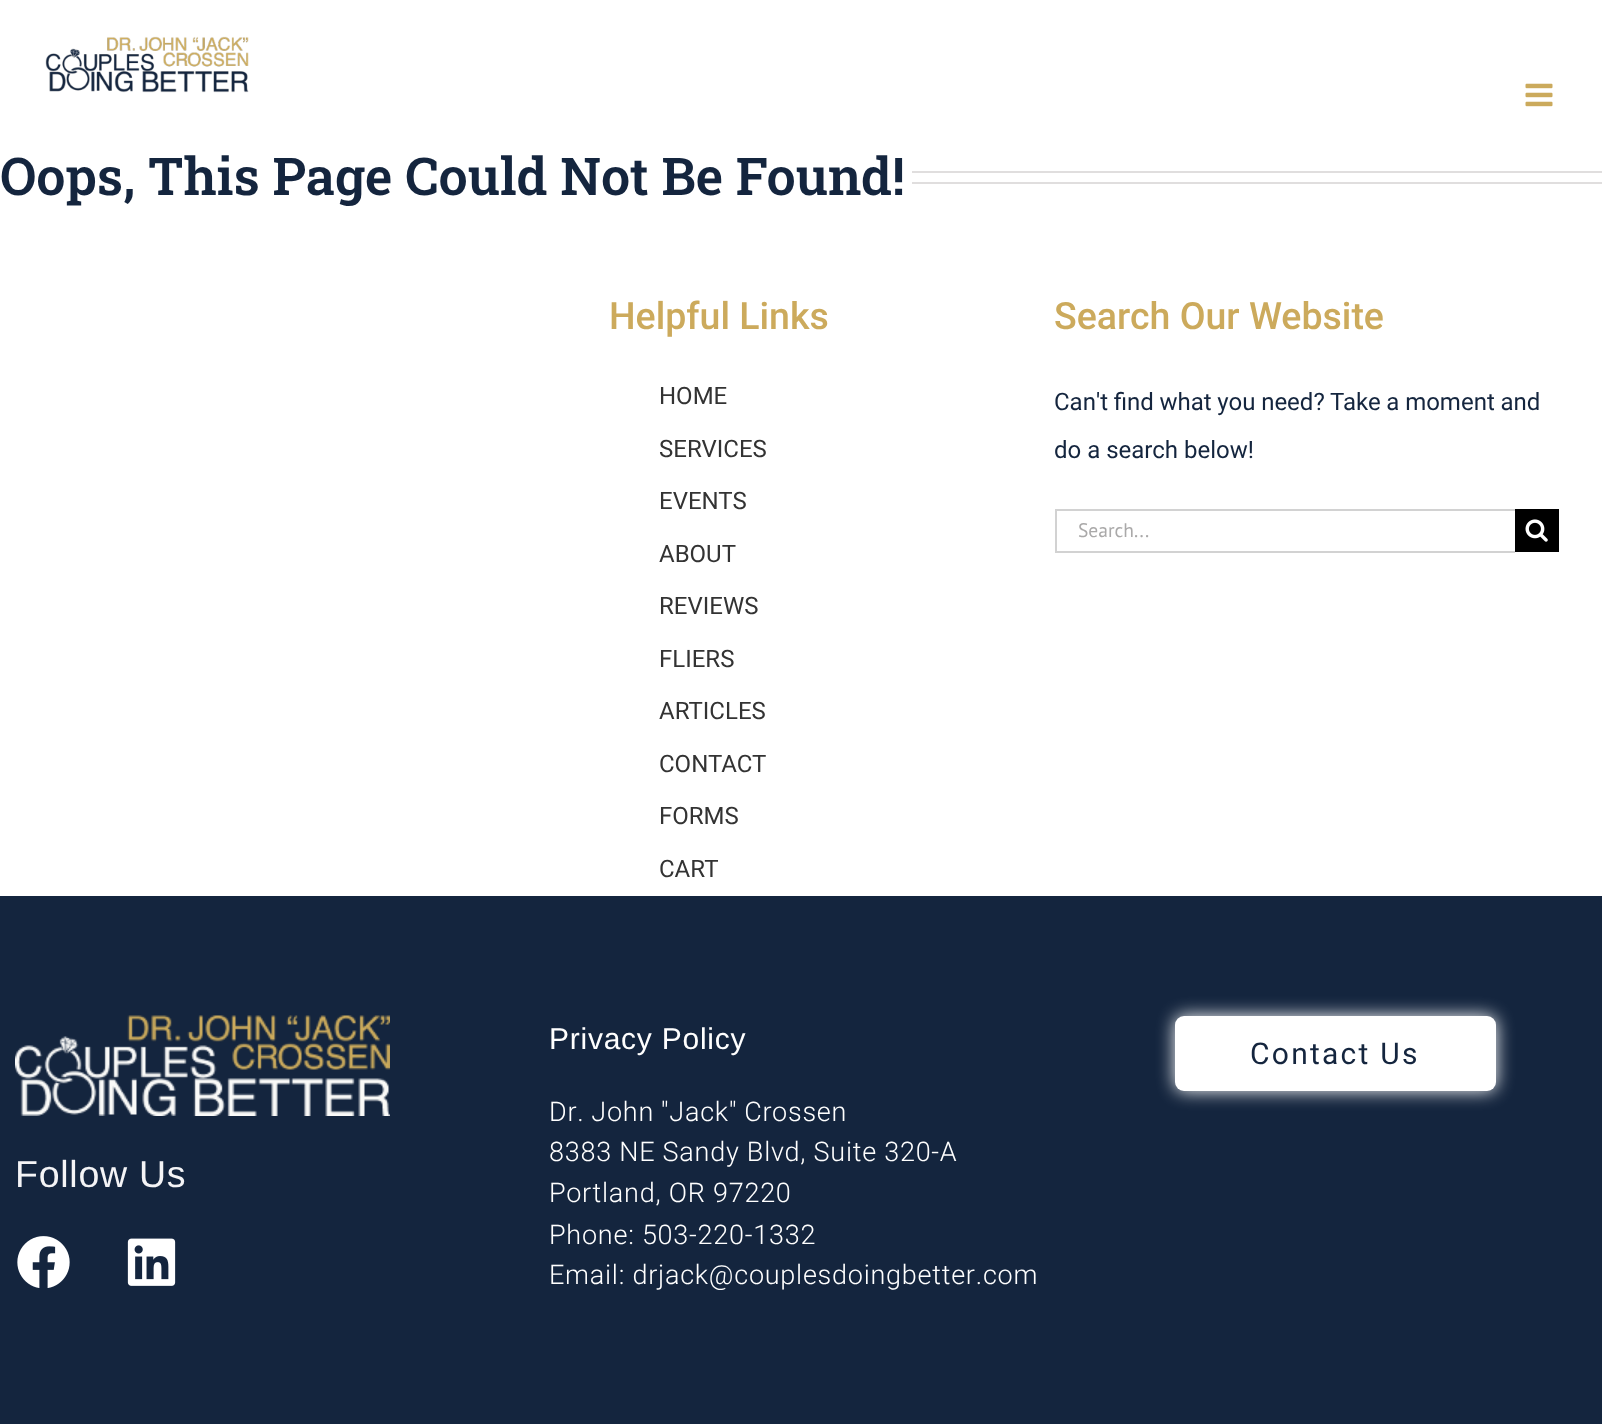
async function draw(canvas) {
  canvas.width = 1602
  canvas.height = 1424
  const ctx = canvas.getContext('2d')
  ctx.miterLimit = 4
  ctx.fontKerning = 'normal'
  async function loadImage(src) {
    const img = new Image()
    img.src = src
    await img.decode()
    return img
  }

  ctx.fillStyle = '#fff'
  ctx.fillRect(0, 0, 1602, 1424)
  ctx.drawImage(await loadImage('image0.png'), 45, 36, 204, 57)
  ctx.drawImage(await loadImage('image1.png'), 1525, 83, 28, 24)
  ctx.font = '600 52.1px Roboto Slab'
  ctx.fillStyle = '#14253e'
  ctx.fillText('Oops, This Page Could Not Be Found!', 0, 195)
  ctx.fillStyle = '#e0dede'
  ctx.fillRect(912, 171, 690, 2)
  ctx.fillRect(912, 182, 690, 2)
  ctx.font = '500 37.5px Roboto'
  ctx.fillStyle = '#ccaa5c'
  ctx.fillText('Helpful Links', 609, 329)
  ctx.font = '24px Roboto'
  ctx.fillStyle = '#333'
  ctx.fillText('HOME', 659, 404)
  ctx.fillText('SERVICES', 659, 457)
  ctx.fillText('EVENTS', 659, 509)
  ctx.fillText('ABOUT', 659, 562)
  ctx.fillText('REVIEWS', 659, 614)
  ctx.fillText('FLIERS', 659, 667)
  ctx.fillText('ARTICLES', 659, 719)
  ctx.fillText('CONTACT', 659, 772)
  ctx.fillText('FORMS', 659, 824)
  ctx.fillText('CART', 659, 877)
  ctx.font = '500 37.5px Roboto'
  ctx.fillStyle = '#ccaa5c'
  ctx.fillText('Search Our Website', 1054, 329)
  ctx.wordSpacing = '-0.25px'
  ctx.font = '24px Roboto'
  ctx.fillStyle = '#14253e'
  ctx.fillText('Can\'t find what you need? Take a moment and', 1054, 410)
  ctx.wordSpacing = '0px'
  ctx.fillText('do a search below!', 1054, 458)
  ctx.fillStyle = '#d2d2d2'
  ctx.fillRect(1055, 509, 460, 2)
  ctx.fillRect(1055, 551, 460, 2)
  ctx.fillRect(1055, 509, 2, 43)
  ctx.font = '19.5px PT Sans'
  ctx.fillStyle = '#aaa9a9'
  ctx.fillText('Search...', 1078, 537)
  ctx.fillStyle = '#000'
  ctx.fillRect(1515, 509, 44, 43)
  ctx.drawImage(await loadImage('image2.png'), 1525, 519, 23, 23)
  ctx.fillStyle = '#14253e'
  ctx.fillRect(0, 896, 1602, 528)
  ctx.letterSpacing = '0.75px'
  ctx.font = '30px Liberation Sans'
  ctx.fillStyle = '#fff'
  ctx.fillText('Privacy Policy', 549, 1049)
  ctx.wordSpacing = '-0.5px'
  ctx.font = '300 27px Roboto'
  ctx.fillText('Dr. John "Jack" Crossen', 549, 1121)
  ctx.wordSpacing = '0px'
  ctx.fillText('8383 NE Sandy Blvd, Suite 320-A', 549, 1161)
  ctx.fillText('Portland, OR 97220', 549, 1202)
  ctx.fillText('Phone: 503-220-1332', 549, 1244)
  ctx.fillText('Email: drjack@couplesdoingbetter.com', 549, 1284)
  ctx.filter = 'blur(9px)'
  ctx.beginPath()
  ctx.roundRect(1175, 1016, 321, 75, 9)
  ctx.fill()
  ctx.filter = 'none'
  ctx.beginPath()
  ctx.roundRect(1175, 1016, 321, 75, 9)
  ctx.fill()
  ctx.letterSpacing = '2.25px'
  ctx.font = '30px Roboto'
  ctx.fillStyle = '#14253e'
  ctx.fillText('Contact Us', 1250, 1064)
  ctx.drawImage(await loadImage('image3.png'), 15, 1015, 375, 101)
  ctx.letterSpacing = '0.75px'
  ctx.font = '37.5px Liberation Sans'
  ctx.fillStyle = '#f4f4f6'
  ctx.fillText('Follow Us', 15, 1187)
  ctx.drawImage(await loadImage('image4.png'), 17, 1236, 53, 52)
  ctx.drawImage(await loadImage('image5.png'), 127, 1238, 49, 48)
}

draw(document.querySelector('canvas'))
